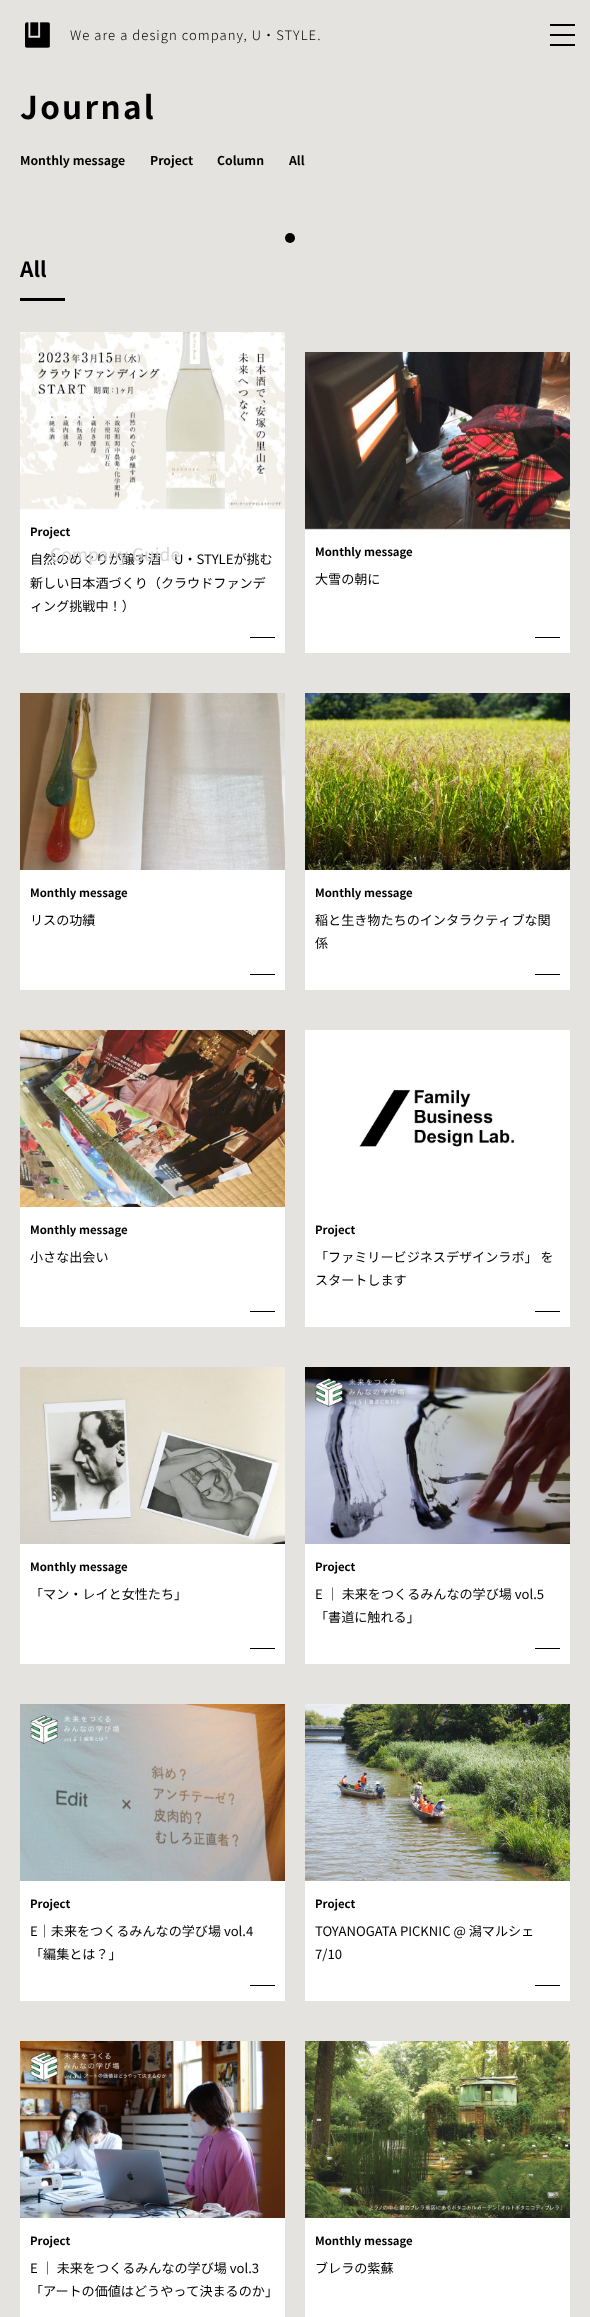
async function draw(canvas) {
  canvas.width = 590
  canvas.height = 2317
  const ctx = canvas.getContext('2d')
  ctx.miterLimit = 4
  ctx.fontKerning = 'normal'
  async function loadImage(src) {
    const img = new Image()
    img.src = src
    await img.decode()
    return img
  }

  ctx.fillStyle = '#e5e3e0'
  ctx.fillRect(0, 0, 590, 2317)
  ctx.drawImage(await loadImage('image0.png'), 25, 22, 25, 26)
  ctx.letterSpacing = '1.05px'
  ctx.font = '300 13.1px Noto Sans JP'
  ctx.fillStyle = '#000'
  ctx.fillText('We are a design company, U・STYLE.', 70, 40)
  ctx.fillRect(550, 24, 25, 2)
  ctx.fillRect(550, 34, 25, 2)
  ctx.fillRect(550, 44, 25, 2)
  ctx.fillStyle = '#fff'
  ctx.fillRect(20, 508, 265, 145)
  ctx.letterSpacing = '0px'
  ctx.font = '13.1px Noto Sans JP'
  ctx.fillStyle = '#000'
  ctx.fillText('自然のめぐりが醸す酒　U・STYLEが挑む', 30, 564)
  ctx.font = '17.5px Noto Sans JP'
  ctx.fillStyle = '#d6d6d6'
  ctx.fillText('Company Guide', 50, 561)
  ctx.letterSpacing = '2.25px'
  ctx.font = 'bold 31.5px Noto Sans JP'
  ctx.fillStyle = '#000'
  ctx.fillText('Journal', 20, 119)
  ctx.letterSpacing = '0px'
  ctx.font = 'bold 12.25px Noto Sans JP'
  ctx.fillText('Monthly message', 20, 165)
  ctx.fillText('Project', 150, 165)
  ctx.fillText('Column', 217, 165)
  ctx.fillText('All', 289, 165)
  ctx.beginPath()
  ctx.arc(290, 238, 5, 0, 2 * Math.PI)
  ctx.fill()
  ctx.font = 'bold 21px Noto Sans JP'
  ctx.fillText('All', 20, 277)
  ctx.fillRect(20, 298, 45, 3)
  ctx.drawImage(await loadImage('image1.png'), 20, 332, 265, 178)
  ctx.font = 'bold 11.4px Noto Sans JP'
  ctx.fillText('Project', 30, 536)
  ctx.font = '13.1px Noto Sans JP'
  ctx.fillText('新しい日本酒づくり（クラウドファンデ', 30, 588)
  ctx.fillText('ィング挑戦中！）', 30, 611)
  ctx.fillRect(250, 637, 25, 1)
  ctx.fillStyle = '#fff'
  ctx.fillRect(305, 528, 265, 125)
  ctx.drawImage(await loadImage('image2.png'), 305, 352, 265, 178)
  ctx.font = 'bold 11.4px Noto Sans JP'
  ctx.fillStyle = '#000'
  ctx.fillText('Monthly message', 315, 556)
  ctx.font = '13.1px Noto Sans JP'
  ctx.fillText('大雪の朝に', 315, 584)
  ctx.fillRect(535, 637, 25, 1)
  ctx.fillStyle = '#fff'
  ctx.fillRect(20, 870, 265, 120)
  ctx.drawImage(await loadImage('image3.png'), 20, 693, 265, 177)
  ctx.font = 'bold 11.4px Noto Sans JP'
  ctx.fillStyle = '#000'
  ctx.fillText('Monthly message', 30, 897)
  ctx.font = '13.1px Noto Sans JP'
  ctx.fillText('リスの功績', 30, 925)
  ctx.fillRect(250, 974, 25, 1)
  ctx.fillStyle = '#fff'
  ctx.fillRect(305, 870, 265, 120)
  ctx.drawImage(await loadImage('image4.png'), 305, 693, 265, 177)
  ctx.font = 'bold 11.4px Noto Sans JP'
  ctx.fillStyle = '#000'
  ctx.fillText('Monthly message', 315, 897)
  ctx.font = '13.1px Noto Sans JP'
  ctx.fillText('稲と生き物たちのインタラクティブな関', 315, 925)
  ctx.fillText('係', 315, 948)
  ctx.fillRect(535, 974, 25, 1)
  ctx.fillStyle = '#fff'
  ctx.fillRect(20, 1207, 265, 120)
  ctx.drawImage(await loadImage('image5.png'), 20, 1030, 265, 177)
  ctx.font = 'bold 11.4px Noto Sans JP'
  ctx.fillStyle = '#000'
  ctx.fillText('Monthly message', 30, 1234)
  ctx.font = '13.1px Noto Sans JP'
  ctx.fillText('小さな出会い', 30, 1262)
  ctx.fillRect(250, 1311, 25, 1)
  ctx.fillStyle = '#fff'
  ctx.fillRect(305, 1030, 265, 297)
  ctx.drawImage(await loadImage('image6.png'), 359, 1090, 156, 57)
  ctx.font = 'bold 11.4px Noto Sans JP'
  ctx.fillStyle = '#000'
  ctx.fillText('Project', 315, 1234)
  ctx.font = '13.1px Noto Sans JP'
  ctx.fillText('「ファミリービジネスデザインラボ」 を', 315, 1262)
  ctx.fillText('スタートします', 315, 1285)
  ctx.fillRect(535, 1311, 25, 1)
  ctx.fillStyle = '#fff'
  ctx.fillRect(20, 1544, 265, 120)
  ctx.drawImage(await loadImage('image7.png'), 20, 1367, 265, 177)
  ctx.font = 'bold 11.4px Noto Sans JP'
  ctx.fillStyle = '#000'
  ctx.fillText('Monthly message', 30, 1571)
  ctx.font = '13.1px Noto Sans JP'
  ctx.fillText('「マン・レイと女性たち」', 30, 1599)
  ctx.fillRect(250, 1648, 25, 1)
  ctx.fillStyle = '#fff'
  ctx.fillRect(305, 1544, 265, 120)
  ctx.drawImage(await loadImage('image8.png'), 305, 1367, 265, 177)
  ctx.font = 'bold 11.4px Noto Sans JP'
  ctx.fillStyle = '#000'
  ctx.fillText('Project', 315, 1571)
  ctx.font = '13.1px Noto Sans JP'
  ctx.fillText('E ｜ 未来をつくるみんなの学び場 vol.5', 315, 1599)
  ctx.fillText('「書道に触れる」', 315, 1622)
  ctx.fillRect(535, 1648, 25, 1)
  ctx.fillStyle = '#fff'
  ctx.fillRect(20, 1881, 265, 120)
  ctx.drawImage(await loadImage('image9.png'), 20, 1704, 265, 177)
  ctx.font = 'bold 11.4px Noto Sans JP'
  ctx.fillStyle = '#000'
  ctx.fillText('Project', 30, 1908)
  ctx.font = '13.1px Noto Sans JP'
  ctx.fillText('E｜未来をつくるみんなの学び場 vol.4', 30, 1936)
  ctx.fillText('「編集とは？」', 30, 1959)
  ctx.fillRect(250, 1985, 25, 1)
  ctx.fillStyle = '#fff'
  ctx.fillRect(305, 1881, 265, 120)
  ctx.drawImage(await loadImage('image10.png'), 305, 1704, 265, 177)
  ctx.font = 'bold 11.4px Noto Sans JP'
  ctx.fillStyle = '#000'
  ctx.fillText('Project', 315, 1908)
  ctx.font = '13.1px Noto Sans JP'
  ctx.fillText('TOYANOGATA PICKNIC @ 潟マルシェ', 315, 1936)
  ctx.fillText('7/10', 315, 1959)
  ctx.fillRect(535, 1985, 25, 1)
  ctx.fillStyle = '#fff'
  ctx.fillRect(20, 2218, 265, 99)
  ctx.drawImage(await loadImage('image11.png'), 20, 2041, 265, 177)
  ctx.font = 'bold 11.4px Noto Sans JP'
  ctx.fillStyle = '#000'
  ctx.fillText('Project', 30, 2245)
  ctx.font = '13.1px Noto Sans JP'
  ctx.fillText('E ｜ 未来をつくるみんなの学び場 vol.3', 30, 2273)
  ctx.fillText('「アートの価値はどうやって決まるのか」', 30, 2296)
  ctx.fillStyle = '#fff'
  ctx.fillRect(305, 2218, 265, 99)
  ctx.drawImage(await loadImage('image12.png'), 305, 2041, 265, 177)
  ctx.font = 'bold 11.4px Noto Sans JP'
  ctx.fillStyle = '#000'
  ctx.fillText('Monthly message', 315, 2245)
  ctx.font = '13.1px Noto Sans JP'
  ctx.fillText('ブレラの紫蘇', 315, 2273)
}

draw(document.querySelector('canvas'))
